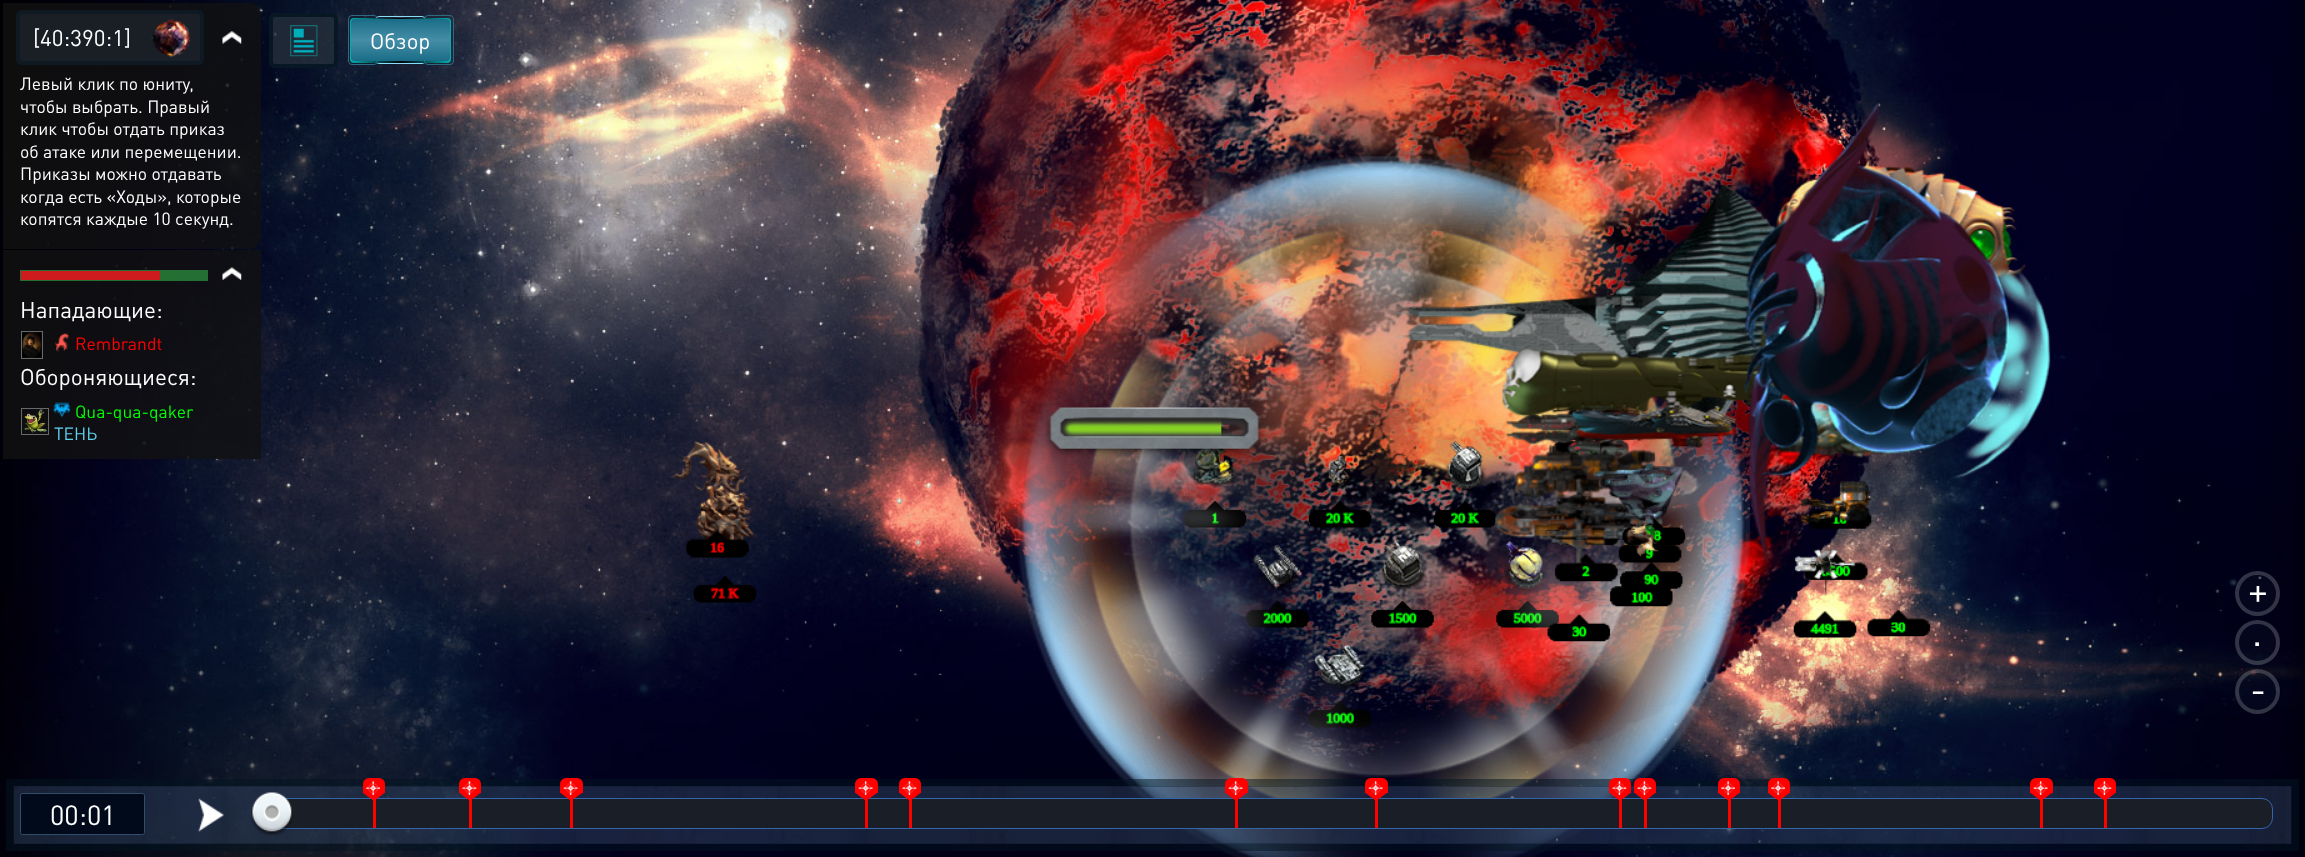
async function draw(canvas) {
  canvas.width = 2305
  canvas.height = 857
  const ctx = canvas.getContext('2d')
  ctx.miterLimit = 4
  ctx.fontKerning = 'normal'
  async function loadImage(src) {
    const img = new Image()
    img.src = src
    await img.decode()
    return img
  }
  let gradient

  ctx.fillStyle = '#fff'
  ctx.fillRect(0, 0, 2305, 857)
  ctx.drawImage(await loadImage('image0.png'), 0, 0, 2305, 857)
  ctx.fillStyle = '#111111cc'
  ctx.beginPath()
  ctx.roundRect(3, 3, 258, 246, [0, 11, 11, 0])
  ctx.fill()
  ctx.fillStyle = '#252f3b80'
  ctx.beginPath()
  ctx.roundRect(16, 10, 188, 55, 6)
  ctx.fill()
  ctx.beginPath()
  ctx.roundRect(18, 12, 184, 51, 4)
  ctx.strokeStyle = '#01131f80'
  ctx.lineWidth = 4
  ctx.stroke()
  ctx.font = '22.5px DIN'
  ctx.fillStyle = '#fff'
  ctx.fillText('[40:390:1]', 33, 46)
  ctx.drawImage(await loadImage('image1.png'), 151, 18, 39, 40)
  ctx.drawImage(await loadImage('image2.png'), 152, 18, 38, 39)
  ctx.drawImage(await loadImage('image3.png'), 222, 31, 20, 13)
  ctx.font = '17.5px DIN'
  ctx.fillText('Левый клик по юниту,', 20, 90)
  ctx.fillText('чтобы выбрать. Правый', 20, 113)
  ctx.fillText('клик чтобы отдать приказ', 20, 135)
  ctx.fillText('об атаке или перемещении.', 20, 158)
  ctx.fillText('Приказы можно отдавать', 20, 180)
  ctx.fillText('когда есть «Ходы», которые', 20, 203)
  ctx.fillText('копятся каждые 10 секунд.', 20, 225)
  ctx.fillStyle = '#111111cc'
  ctx.fillRect(3, 250, 258, 209)
  ctx.fillStyle = '#3acf5180'
  ctx.fillRect(20, 270, 188, 11)
  ctx.fillStyle = '#ce1b1e'
  ctx.fillRect(21, 271, 139, 9)
  ctx.drawImage(await loadImage('image4.png'), 222, 267, 20, 13)
  ctx.font = '22.5px DIN'
  ctx.fillStyle = '#fff'
  ctx.fillText('Нападающие:', 20, 318)
  ctx.strokeStyle = '#686868'
  ctx.lineWidth = 1
  ctx.strokeRect(21.5, 331.5, 21, 27)
  ctx.drawImage(await loadImage('image5.png'), 22, 332, 20, 26)
  ctx.drawImage(await loadImage('image6.png'), 55, 333, 14, 19)
  ctx.font = '17.5px DIN'
  ctx.fillStyle = '#f00'
  ctx.fillText('Rembrandt', 75, 350)
  ctx.font = '22.5px DIN'
  ctx.fillStyle = '#fff'
  ctx.fillText('Обороняющиеся:', 20, 385)
  ctx.strokeRect(21.5, 408.5, 27, 26)
  ctx.drawImage(await loadImage('image7.png'), 24, 409, 23, 24)
  ctx.drawImage(await loadImage('image8.png'), 53, 402, 17, 16)
  ctx.font = '17.5px DIN'
  ctx.fillStyle = '#0f0'
  ctx.fillText('Qua-qua-qaker', 75, 418)
  ctx.fillStyle = '#60cfec'
  ctx.fillText('ТЕНЬ', 54, 440)
  ctx.fillStyle = '#252f3bcc'
  ctx.beginPath()
  ctx.roundRect(269, 13, 69, 55, 6)
  ctx.fill()
  ctx.drawImage(await loadImage('image9.png'), 290, 25, 28, 32)
  ctx.beginPath()
  ctx.roundRect(271, 15, 65, 51, 4)
  ctx.strokeStyle = '#01131fcc'
  ctx.lineWidth = 4
  ctx.stroke()
  ctx.beginPath()
  ctx.roundRect(375.5, 16.5, 50, 47, 3.5)
  ctx.strokeStyle = '#89dcfa'
  ctx.lineWidth = 1
  ctx.stroke()
  gradient = ctx.createLinearGradient(350, 40, 451, 40)
  gradient.addColorStop(0, '#02afaf')
  gradient.addColorStop(0.5, '#00030a')
  gradient.addColorStop(1, '#02afaf')
  ctx.fillStyle = gradient
  ctx.beginPath()
  ctx.roundRect(350, 18, 101, 45, 4)
  ctx.fill()
  ctx.beginPath()
  ctx.roundRect(348.5, 15.5, 29, 49, 3.5)
  ctx.strokeStyle = '#2e6b80'
  ctx.stroke()
  ctx.beginPath()
  ctx.roundRect(424.5, 15.5, 29, 49, 3.5)
  ctx.stroke()
  gradient = ctx.createLinearGradient(401, 19, 401, 61)
  gradient.addColorStop(0, '#1a6d87')
  gradient.addColorStop(0.5, '#458da7')
  gradient.addColorStop(1, '#1a6d87')
  ctx.fillStyle = gradient
  ctx.beginPath()
  ctx.roundRect(351, 19, 99, 42, 4)
  ctx.fill()
  ctx.font = '22px DIN'
  ctx.fillStyle = '#fff'
  ctx.fillText('Обзор', 370, 49)
  ctx.fillStyle = '#151f3133'
  ctx.beginPath()
  ctx.arc(2257.5, 593.5, 22.5, 0, 2 * Math.PI)
  ctx.fill()
  ctx.beginPath()
  ctx.arc(2257.5, 593.5, 20.5, 0, 2 * Math.PI)
  ctx.strokeStyle = '#ebebeb33'
  ctx.lineWidth = 4
  ctx.stroke()
  ctx.font = '38px DIN'
  ctx.fillStyle = '#fff'
  ctx.fillText('+', 2248, 604)
  ctx.fillStyle = '#151f3133'
  ctx.beginPath()
  ctx.arc(2257.5, 642.5, 22.5, 0, 2 * Math.PI)
  ctx.fill()
  ctx.beginPath()
  ctx.arc(2257.5, 642.5, 20.5, 0, 2 * Math.PI)
  ctx.stroke()
  ctx.fillStyle = '#fff'
  ctx.fillText('.', 2252, 646)
  ctx.fillStyle = '#151f3133'
  ctx.beginPath()
  ctx.arc(2257.5, 691.5, 22.5, 0, 2 * Math.PI)
  ctx.fill()
  ctx.beginPath()
  ctx.arc(2257.5, 691.5, 20.5, 0, 2 * Math.PI)
  ctx.stroke()
  ctx.fillStyle = '#fff'
  ctx.fillText('-', 2250, 703)
  ctx.beginPath()
  ctx.rect(10, 783, 2285, 64)
  ctx.strokeStyle = '#01131f80'
  ctx.lineWidth = 8
  ctx.stroke()
  ctx.drawImage(await loadImage('image22.png'), 13, 786, 2279, 58)
  ctx.drawImage(await loadImage('image10.png'), 198, 798, 26, 34)
  ctx.fillStyle = '#1a1f27'
  ctx.beginPath()
  ctx.roundRect(258.5, 798.5, 2014, 30, 10.5)
  ctx.fill()
  ctx.strokeStyle = '#3465a9'
  ctx.lineWidth = 1
  ctx.stroke()
  ctx.drawImage(await loadImage('image11.png'), 251, 792, 42, 44)
  ctx.fillStyle = '#f00'
  ctx.fillRect(373, 799, 3, 29)
  ctx.beginPath()
  ctx.roundRect(363, 778, 22, 15, [6, 6, 0, 0])
  ctx.fill()
  ctx.beginPath()
  ctx.moveTo(362.5, 792.5)
  ctx.lineTo(385, 792.5)
  ctx.lineTo(374, 801)
  ctx.closePath()
  ctx.fill()
  ctx.drawImage(await loadImage('image12.png'), 366, 781, 14, 14)
  ctx.fillRect(469, 799, 3, 29)
  ctx.beginPath()
  ctx.roundRect(459, 778, 22, 15, [6, 6, 0, 0])
  ctx.fill()
  ctx.beginPath()
  ctx.moveTo(459, 792.5)
  ctx.lineTo(481, 792.5)
  ctx.lineTo(470, 801)
  ctx.closePath()
  ctx.fill()
  ctx.drawImage(await loadImage('image13.png'), 462, 781, 15, 14)
  ctx.fillRect(570, 799, 3, 29)
  ctx.beginPath()
  ctx.roundRect(560, 778, 23, 15, [6, 6, 0, 0])
  ctx.fill()
  ctx.beginPath()
  ctx.moveTo(560, 792.5)
  ctx.lineTo(582.5, 792.5)
  ctx.lineTo(571, 801)
  ctx.closePath()
  ctx.fill()
  ctx.drawImage(await loadImage('image14.png'), 563, 781, 15, 14)
  ctx.fillRect(865, 799, 3, 29)
  ctx.beginPath()
  ctx.roundRect(855, 778, 23, 15, [6, 6, 0, 0])
  ctx.fill()
  ctx.beginPath()
  ctx.moveTo(855, 792.5)
  ctx.lineTo(877.5, 792.5)
  ctx.lineTo(866, 801)
  ctx.closePath()
  ctx.fill()
  ctx.drawImage(await loadImage('image15.png'), 858, 781, 15, 14)
  ctx.fillRect(909, 799, 3, 29)
  ctx.beginPath()
  ctx.roundRect(899, 778, 22, 15, [6, 6, 0, 0])
  ctx.fill()
  ctx.beginPath()
  ctx.moveTo(899, 792.5)
  ctx.lineTo(921, 792.5)
  ctx.lineTo(910, 801)
  ctx.closePath()
  ctx.fill()
  ctx.drawImage(await loadImage('image16.png'), 902, 781, 15, 14)
  ctx.fillRect(1235, 799, 3, 29)
  ctx.beginPath()
  ctx.roundRect(1225, 778, 23, 15, [6, 6, 0, 0])
  ctx.fill()
  ctx.beginPath()
  ctx.moveTo(1225, 792.5)
  ctx.lineTo(1247.5, 792.5)
  ctx.lineTo(1236, 801)
  ctx.closePath()
  ctx.fill()
  ctx.drawImage(await loadImage('image17.png'), 1228, 781, 15, 14)
  ctx.fillRect(1375, 799, 3, 29)
  ctx.beginPath()
  ctx.roundRect(1365, 778, 23, 15, [6, 6, 0, 0])
  ctx.fill()
  ctx.beginPath()
  ctx.moveTo(1365, 792.5)
  ctx.lineTo(1387.5, 792.5)
  ctx.lineTo(1376, 801)
  ctx.closePath()
  ctx.fill()
  ctx.drawImage(await loadImage('image15.png'), 1368, 781, 15, 14)
  ctx.fillRect(1619, 799, 3, 29)
  ctx.beginPath()
  ctx.roundRect(1609, 778, 22, 15, [6, 6, 0, 0])
  ctx.fill()
  ctx.beginPath()
  ctx.moveTo(1609, 792.5)
  ctx.lineTo(1631, 792.5)
  ctx.lineTo(1620, 801)
  ctx.closePath()
  ctx.fill()
  ctx.drawImage(await loadImage('image18.png'), 1612, 781, 15, 14)
  ctx.fillRect(1644, 799, 3, 29)
  ctx.beginPath()
  ctx.roundRect(1634, 778, 22, 15, [6, 6, 0, 0])
  ctx.fill()
  ctx.beginPath()
  ctx.moveTo(1634, 792.5)
  ctx.lineTo(1656, 792.5)
  ctx.lineTo(1645, 801)
  ctx.closePath()
  ctx.fill()
  ctx.drawImage(await loadImage('image16.png'), 1637, 781, 15, 14)
  ctx.fillRect(1728, 799, 3, 29)
  ctx.beginPath()
  ctx.roundRect(1718, 778, 22, 15, [6, 6, 0, 0])
  ctx.fill()
  ctx.beginPath()
  ctx.moveTo(1717.5, 792.5)
  ctx.lineTo(1740, 792.5)
  ctx.lineTo(1729, 801)
  ctx.closePath()
  ctx.fill()
  ctx.drawImage(await loadImage('image19.png'), 1721, 781, 14, 14)
  ctx.fillRect(1778, 799, 3, 29)
  ctx.beginPath()
  ctx.roundRect(1768, 778, 22, 15, [6, 6, 0, 0])
  ctx.fill()
  ctx.beginPath()
  ctx.moveTo(1767.5, 792.5)
  ctx.lineTo(1790, 792.5)
  ctx.lineTo(1779, 801)
  ctx.closePath()
  ctx.fill()
  ctx.drawImage(await loadImage('image19.png'), 1771, 781, 14, 14)
  ctx.fillRect(2040, 799, 3, 29)
  ctx.beginPath()
  ctx.roundRect(2030, 778, 23, 15, [6, 6, 0, 0])
  ctx.fill()
  ctx.beginPath()
  ctx.moveTo(2030, 792.5)
  ctx.lineTo(2052.5, 792.5)
  ctx.lineTo(2041, 801)
  ctx.closePath()
  ctx.fill()
  ctx.drawImage(await loadImage('image20.png'), 2033, 781, 15, 14)
  ctx.fillRect(2104, 799, 3, 29)
  ctx.beginPath()
  ctx.roundRect(2094, 778, 22, 15, [6, 6, 0, 0])
  ctx.fill()
  ctx.beginPath()
  ctx.moveTo(2094, 792.5)
  ctx.lineTo(2116, 792.5)
  ctx.lineTo(2105, 801)
  ctx.closePath()
  ctx.fill()
  ctx.drawImage(await loadImage('image21.png'), 2097, 781, 15, 14)
  ctx.fillStyle = '#000a1b'
  ctx.beginPath()
  ctx.roundRect(20.5, 793.5, 124, 41, 2)
  ctx.fill()
  ctx.strokeStyle = '#324c69'
  ctx.stroke()
  ctx.font = '27.5px DIN'
  ctx.fillStyle = '#fff'
  ctx.fillText('00:01', 50, 825)
}

draw(document.querySelector('canvas'))
